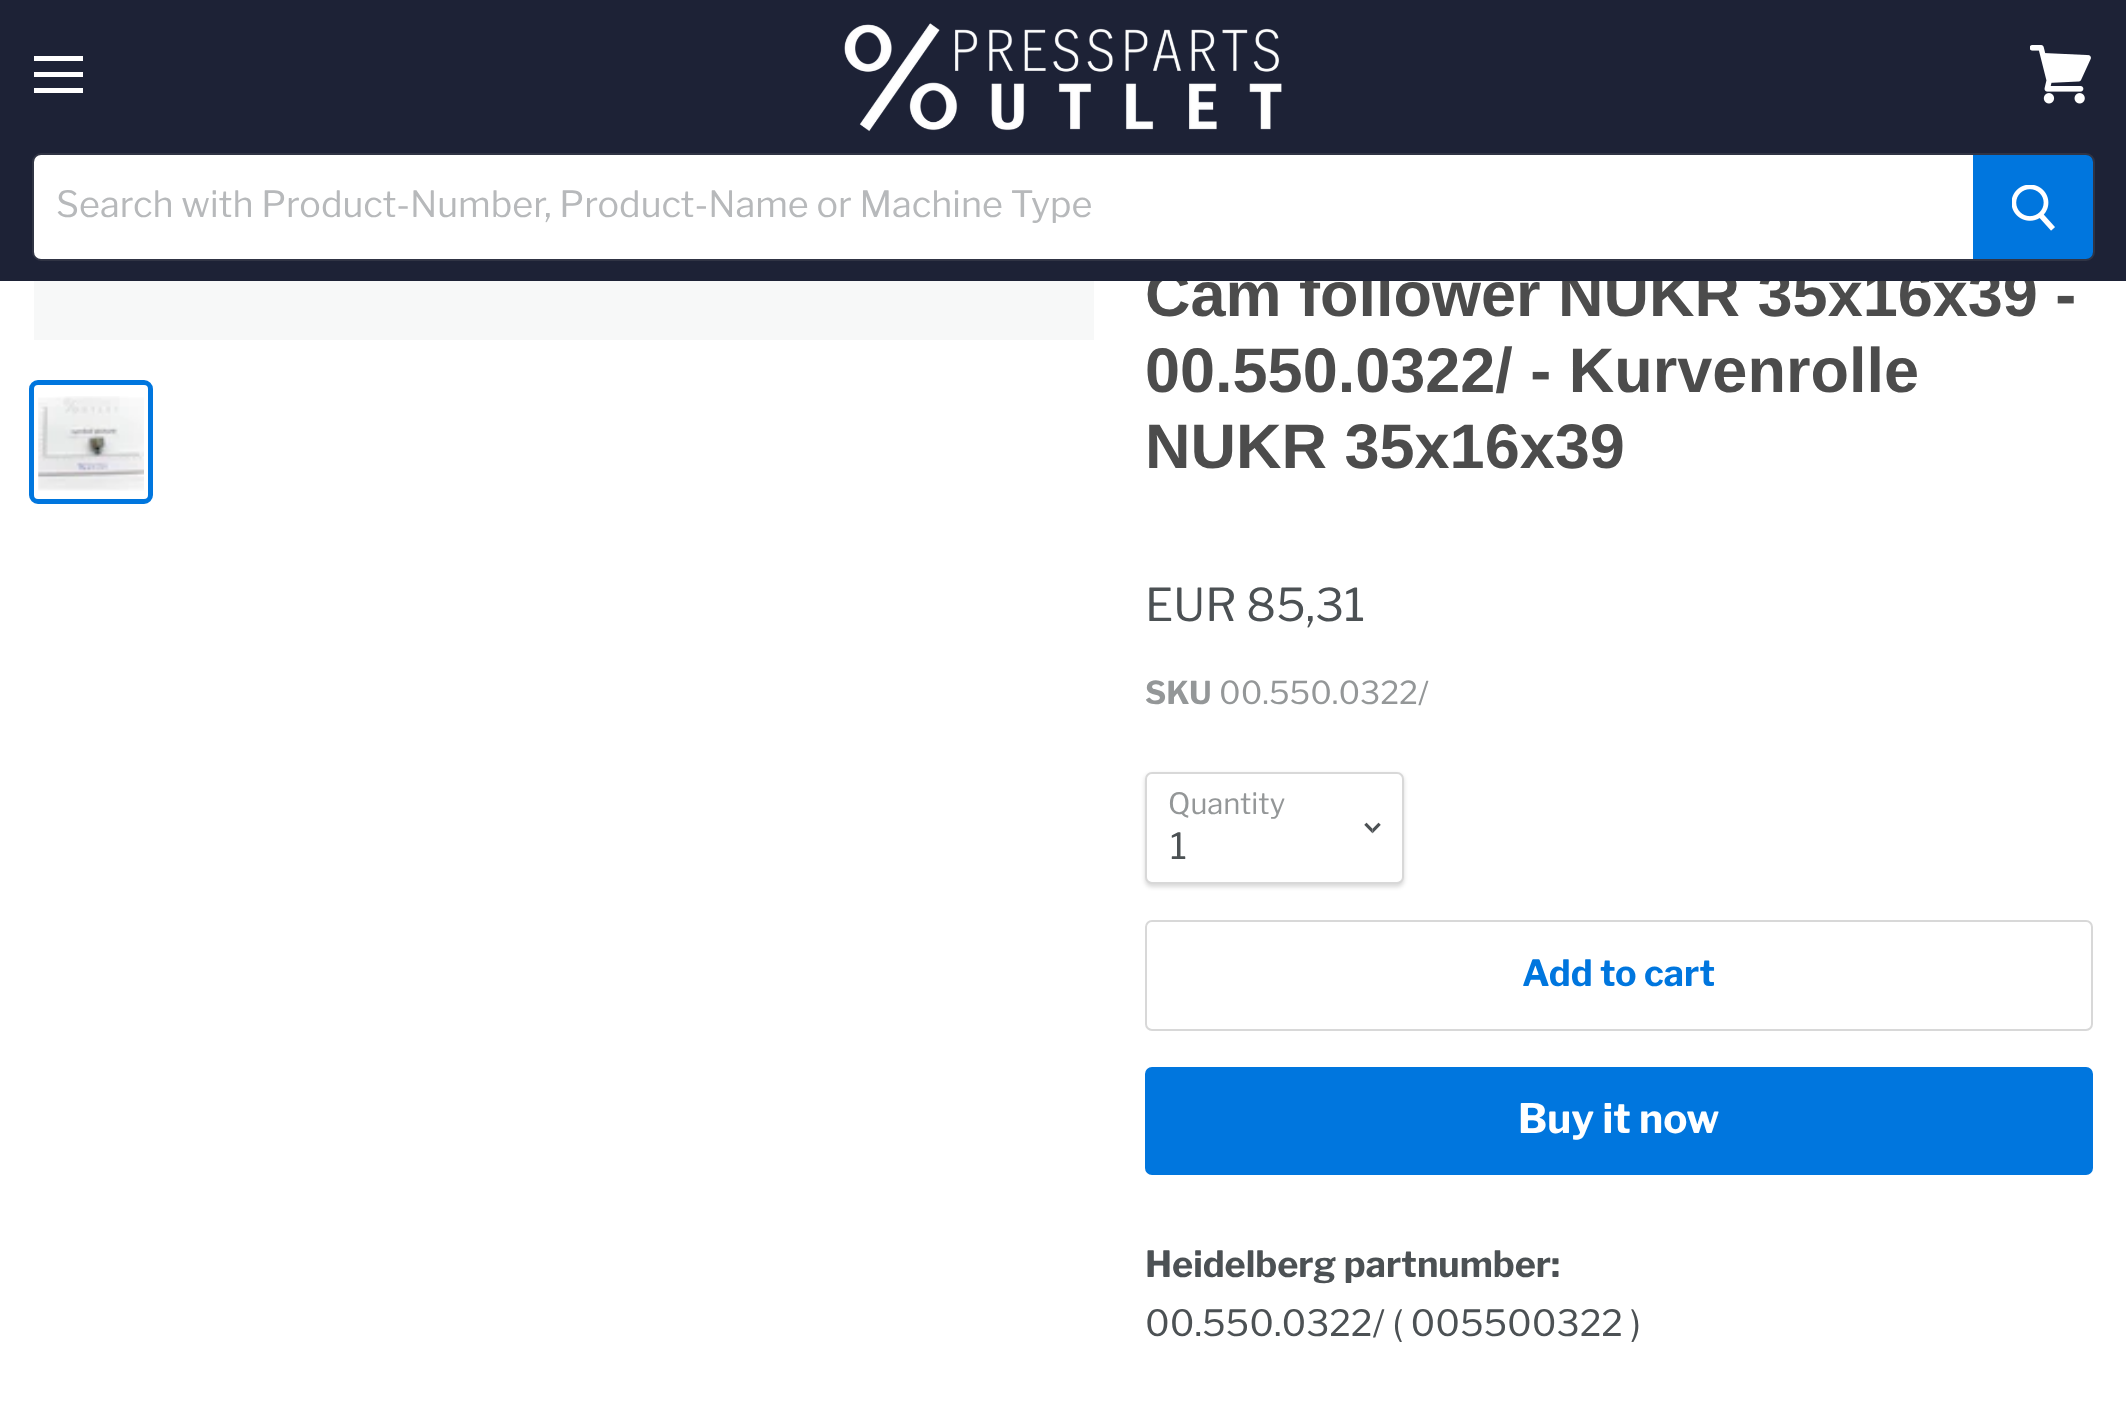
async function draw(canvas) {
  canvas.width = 2126
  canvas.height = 1403
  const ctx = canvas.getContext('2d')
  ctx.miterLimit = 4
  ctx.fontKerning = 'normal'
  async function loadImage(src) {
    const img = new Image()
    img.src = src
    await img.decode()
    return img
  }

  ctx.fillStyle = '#fff'
  ctx.fillRect(0, 0, 2126, 1403)
  ctx.font = 'bold 63px Arimo'
  ctx.fillStyle = '#4c4c4c'
  ctx.fillText('Cam follower NUKR 35x16x39 -', 1145, 316)
  ctx.fillStyle = '#1d2236'
  ctx.fillRect(0, 0, 2126, 281)
  ctx.fillStyle = '#fff'
  ctx.fillRect(34, 56, 49, 5)
  ctx.fillRect(34, 72, 49, 5)
  ctx.fillRect(34, 88, 49, 5)
  ctx.drawImage(await loadImage('image0.png'), 2030, 45, 61, 59)
  ctx.drawImage(await loadImage('image1.png'), 844, 23, 438, 109)
  ctx.beginPath()
  ctx.roundRect(33, 154, 2061, 106, 8)
  ctx.strokeStyle = '#7f7f7f33'
  ctx.lineWidth = 2
  ctx.stroke()
  ctx.beginPath()
  ctx.roundRect(34, 155, 1939, 104, [7, 0, 0, 7])
  ctx.fill()
  ctx.font = '36px Libre Franklin'
  ctx.fillStyle = '#b7b9bb'
  ctx.fillText('Search with Product-Number, Product-Name or Machine Type', 56, 217)
  ctx.fillStyle = '#0076de'
  ctx.beginPath()
  ctx.roundRect(1974, 156, 118, 102, [0, 6, 6, 0])
  ctx.fill()
  ctx.strokeStyle = '#0076de'
  ctx.stroke()
  ctx.drawImage(await loadImage('image2.png'), 2012, 185, 43, 46)
  ctx.fillStyle = '#f7f8f8'
  ctx.fillRect(34, 281, 1060, 59)
  ctx.beginPath()
  ctx.roundRect(31.5, 382.5, 119, 119, 6.5)
  ctx.lineWidth = 5
  ctx.stroke()
  ctx.drawImage(await loadImage('image3.png'), 38, 396, 106, 95)
  ctx.font = 'bold 63px Arimo'
  ctx.fillStyle = '#4c4c4c'
  ctx.fillText('00.550.0322/ - Kurvenrolle', 1145, 392)
  ctx.fillText('NUKR 35x16x39', 1145, 468)
  ctx.font = '45px Libre Franklin'
  ctx.fillStyle = '#4c5154'
  ctx.fillText('EUR 85,31', 1145, 621)
  ctx.font = 'bold 31.5px Libre Franklin'
  ctx.fillStyle = '#949798'
  ctx.fillText('SKU', 1145, 704)
  ctx.font = '31.5px Libre Franklin'
  ctx.fillText('00.550.0322/', 1219, 704)
  ctx.fillStyle = '#00000026'
  ctx.filter = 'blur(2px)'
  ctx.beginPath()
  ctx.roundRect(1145, 774, 259, 113, 7)
  ctx.fill()
  ctx.filter = 'none'
  ctx.fillStyle = '#fff'
  ctx.beginPath()
  ctx.roundRect(1146, 773, 257, 110, 6)
  ctx.fill()
  ctx.strokeStyle = '#d8d8d8'
  ctx.lineWidth = 2
  ctx.stroke()
  ctx.font = '29.25px Libre Franklin'
  ctx.fillStyle = '#949798'
  ctx.fillText('Quantity', 1168, 814)
  ctx.drawImage(await loadImage('image4.png'), 1364, 822, 17, 12)
  ctx.font = '36px Libre Franklin'
  ctx.fillStyle = '#4c5154'
  ctx.fillText('1', 1170, 859)
  ctx.beginPath()
  ctx.roundRect(1146, 921, 946, 109, 6)
  ctx.stroke()
  ctx.font = 'bold 36px Libre Franklin'
  ctx.fillStyle = '#0076de'
  ctx.fillText('Add to cart', 1522, 986)
  ctx.beginPath()
  ctx.roundRect(1146, 1068, 946, 106, 6)
  ctx.fill()
  ctx.strokeStyle = '#0076de'
  ctx.stroke()
  ctx.font = 'bold 40.5px Libre Franklin'
  ctx.fillStyle = '#fff'
  ctx.fillText('Buy it now', 1518, 1133)
  ctx.font = 'bold 36px Libre Franklin'
  ctx.fillStyle = '#4c5154'
  ctx.fillText('Heidelberg partnumber:', 1145, 1277)
  ctx.font = '36px Libre Franklin'
  ctx.fillText('00.550.0322/ ( 005500322 )', 1145, 1336)
}

draw(document.querySelector('canvas'))
